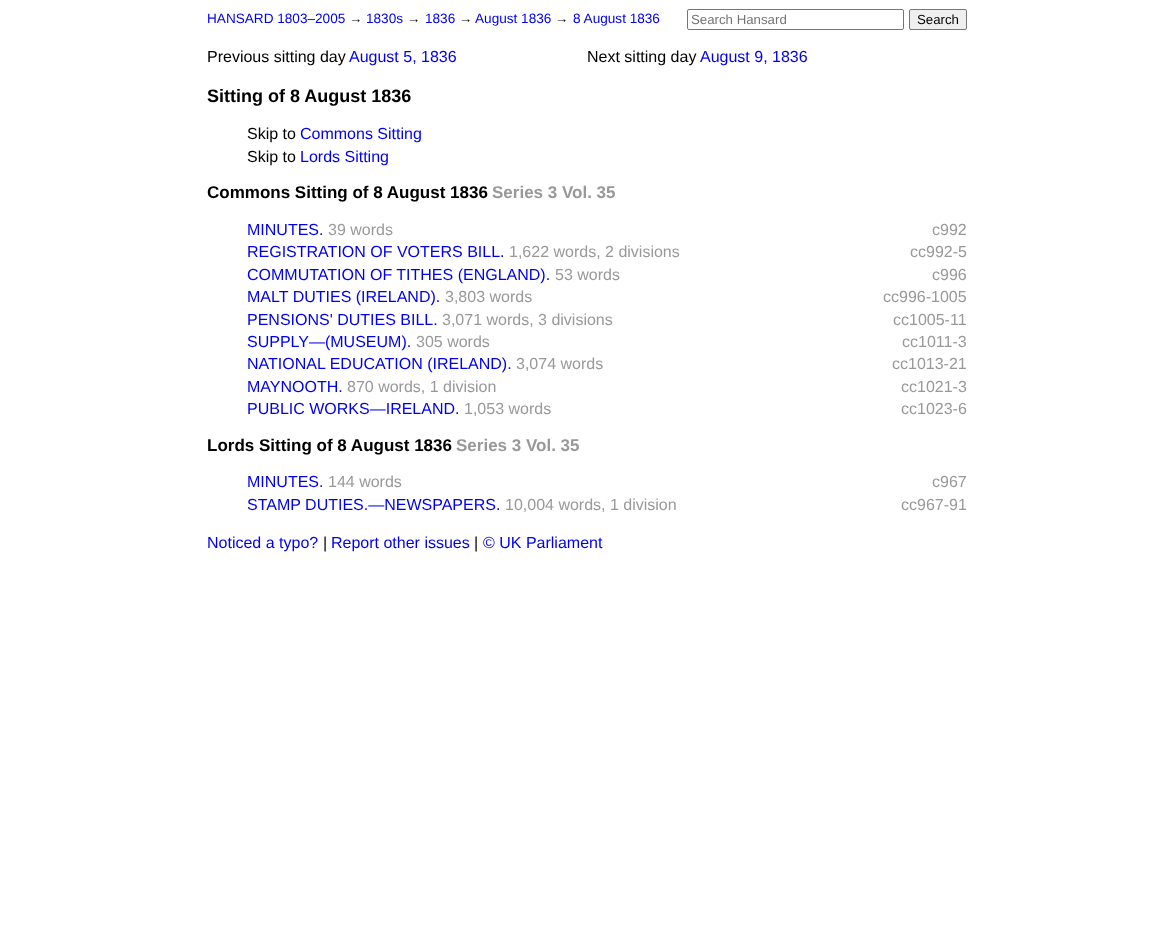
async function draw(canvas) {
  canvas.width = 1174
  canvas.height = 932
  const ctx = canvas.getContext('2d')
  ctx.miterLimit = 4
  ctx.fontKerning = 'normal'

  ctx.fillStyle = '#fff'
  ctx.fillRect(0, 0, 1174, 932)
  ctx.font = '13.6px Liberation Sans'
  ctx.fillStyle = '#00e'
  ctx.fillText('HANSARD 1803–2005', 207, 23)
  ctx.fillStyle = '#000'
  ctx.fillText('→', 349, 23)
  ctx.fillStyle = '#00e'
  ctx.fillText('1830s', 366, 23)
  ctx.fillStyle = '#000'
  ctx.fillText('→', 407, 23)
  ctx.fillStyle = '#00e'
  ctx.fillText('1836', 425, 23)
  ctx.fillStyle = '#000'
  ctx.fillText('→', 459, 23)
  ctx.fillStyle = '#00e'
  ctx.fillText('August 1836', 475, 23)
  ctx.fillStyle = '#000'
  ctx.fillText('→', 555, 23)
  ctx.fillStyle = '#00e'
  ctx.fillText('8 August 1836', 573, 23)
  ctx.beginPath()
  ctx.roundRect(687.5, 9.5, 216, 20, 1.5)
  ctx.strokeStyle = '#767676'
  ctx.stroke()
  ctx.font = '13.25px Liberation Sans'
  ctx.fillStyle = '#757575'
  ctx.fillText('Search Hansard', 691, 24)
  ctx.fillStyle = '#efefef'
  ctx.beginPath()
  ctx.roundRect(909.5, 9.5, 57, 20, 1.5)
  ctx.fill()
  ctx.stroke()
  ctx.fillStyle = '#000'
  ctx.fillText('Search', 917, 24)
  ctx.font = '16px Liberation Sans'
  ctx.fillText('Previous sitting day', 207, 62)
  ctx.fillStyle = '#00e'
  ctx.fillText('August 5, 1836', 349, 62)
  ctx.fillStyle = '#000'
  ctx.fillText('Next sitting day', 587, 62)
  ctx.fillStyle = '#00e'
  ctx.fillText('August 9, 1836', 700, 62)
  ctx.font = 'bold 18px Liberation Sans'
  ctx.fillStyle = '#000'
  ctx.fillText('Sitting of 8 August 1836', 207, 102)
  ctx.font = '16px Liberation Sans'
  ctx.fillText('Skip to', 247, 139)
  ctx.fillStyle = '#00e'
  ctx.fillText('Commons Sitting', 300, 139)
  ctx.fillStyle = '#000'
  ctx.fillText('Skip to', 247, 162)
  ctx.fillStyle = '#00e'
  ctx.fillText('Lords Sitting', 300, 162)
  ctx.font = 'bold 17px Liberation Sans'
  ctx.fillStyle = '#000'
  ctx.fillText('Commons Sitting of 8 August 1836', 207, 198)
  ctx.fillStyle = '#999'
  ctx.fillText('Series 3 Vol. 35', 492, 198)
  ctx.font = '16px Liberation Sans'
  ctx.fillStyle = '#00e'
  ctx.fillText('MINUTES.', 247, 235)
  ctx.fillStyle = '#999'
  ctx.fillText('39 words', 328, 235)
  ctx.fillText('c992', 932, 235)
  ctx.fillStyle = '#00e'
  ctx.fillText('REGISTRATION OF VOTERS BILL.', 247, 257)
  ctx.fillStyle = '#999'
  ctx.fillText('1,622 words, 2 divisions', 509, 257)
  ctx.fillText('cc992-5', 910, 257)
  ctx.fillStyle = '#00e'
  ctx.fillText('COMMUTATION OF TITHES (ENGLAND).', 247, 280)
  ctx.fillStyle = '#999'
  ctx.fillText('53 words', 555, 280)
  ctx.fillText('c996', 932, 280)
  ctx.fillStyle = '#00e'
  ctx.fillText('MALT DUTIES (IRELAND).', 247, 302)
  ctx.fillStyle = '#999'
  ctx.fillText('3,803 words', 445, 302)
  ctx.fillText('cc996-1005', 883, 302)
  ctx.fillStyle = '#00e'
  ctx.fillText('PENSIONS\' DUTIES BILL.', 247, 325)
  ctx.fillStyle = '#999'
  ctx.fillText('3,071 words, 3 divisions', 442, 325)
  ctx.fillText('cc1005-11', 893, 325)
  ctx.fillStyle = '#00e'
  ctx.fillText('SUPPLY—(MUSEUM).', 247, 347)
  ctx.fillStyle = '#999'
  ctx.fillText('305 words', 416, 347)
  ctx.fillText('cc1011-3', 902, 347)
  ctx.fillStyle = '#00e'
  ctx.fillText('NATIONAL EDUCATION (IRELAND).', 247, 369)
  ctx.fillStyle = '#999'
  ctx.fillText('3,074 words', 516, 369)
  ctx.fillText('cc1013-21', 892, 369)
  ctx.fillStyle = '#00e'
  ctx.fillText('MAYNOOTH.', 247, 392)
  ctx.fillStyle = '#999'
  ctx.fillText('870 words, 1 division', 347, 392)
  ctx.fillText('cc1021-3', 901, 392)
  ctx.fillStyle = '#00e'
  ctx.fillText('PUBLIC WORKS—IRELAND.', 247, 414)
  ctx.fillStyle = '#999'
  ctx.fillText('1,053 words', 464, 414)
  ctx.fillText('cc1023-6', 901, 414)
  ctx.font = 'bold 17px Liberation Sans'
  ctx.fillStyle = '#000'
  ctx.fillText('Lords Sitting of 8 August 1836', 207, 451)
  ctx.fillStyle = '#999'
  ctx.fillText('Series 3 Vol. 35', 456, 451)
  ctx.font = '16px Liberation Sans'
  ctx.fillStyle = '#00e'
  ctx.fillText('MINUTES.', 247, 487)
  ctx.fillStyle = '#999'
  ctx.fillText('144 words', 328, 487)
  ctx.fillText('c967', 932, 487)
  ctx.fillStyle = '#00e'
  ctx.fillText('STAMP DUTIES.—NEWSPAPERS.', 247, 510)
  ctx.fillStyle = '#999'
  ctx.fillText('10,004 words, 1 division', 505, 510)
  ctx.fillText('cc967-91', 901, 510)
  ctx.fillStyle = '#00e'
  ctx.fillText('Noticed a typo?', 207, 548)
  ctx.fillStyle = '#000'
  ctx.fillText('|', 323, 548)
  ctx.fillStyle = '#00e'
  ctx.fillText('Report other issues', 331, 548)
  ctx.fillStyle = '#000'
  ctx.fillText('|', 474, 548)
  ctx.fillStyle = '#00e'
  ctx.fillText('© UK Parliament', 483, 548)
}

draw(document.querySelector('canvas'))
